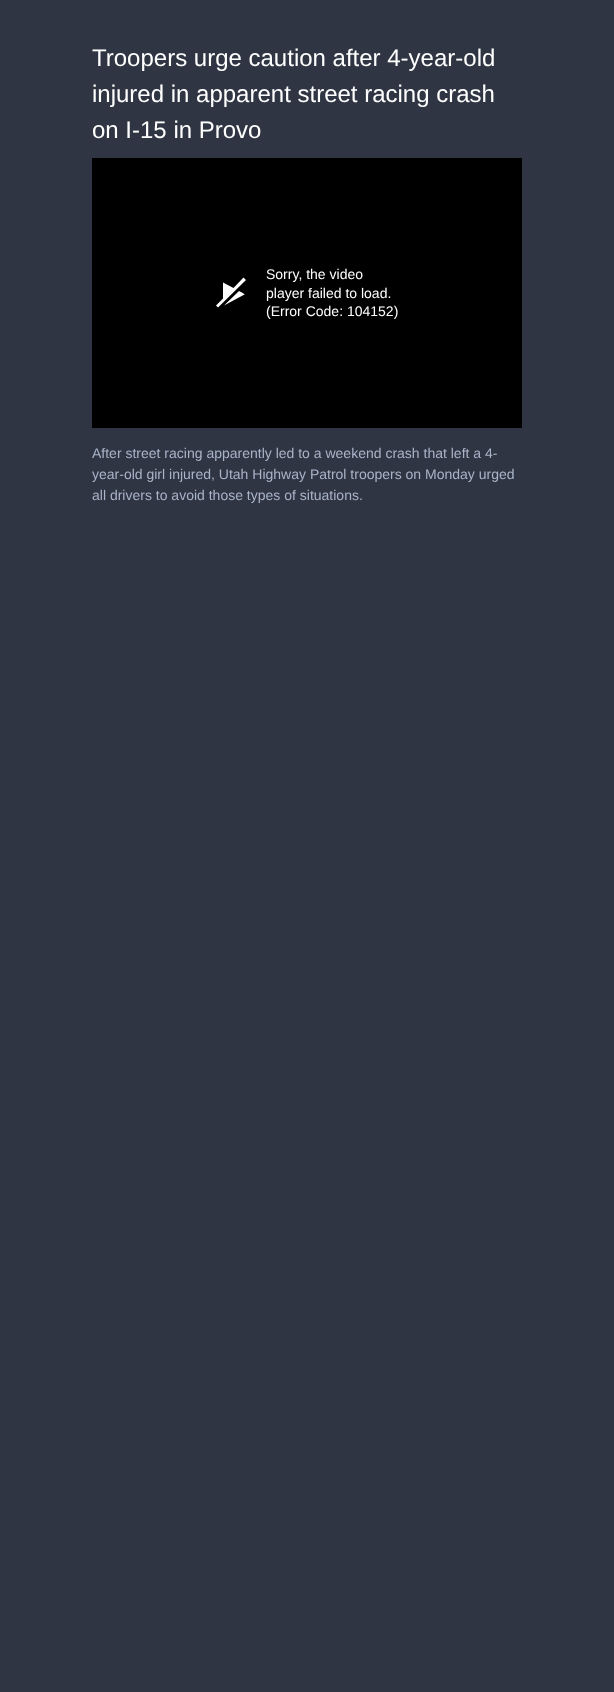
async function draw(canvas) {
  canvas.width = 614
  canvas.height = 1692
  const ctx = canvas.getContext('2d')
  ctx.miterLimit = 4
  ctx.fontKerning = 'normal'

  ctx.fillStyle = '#2f3542'
  ctx.fillRect(0, 0, 614, 1692)
  ctx.font = '24px Liberation Sans'
  ctx.fillStyle = '#fff'
  ctx.fillText('Troopers urge caution after 4-year-old', 92, 66)
  ctx.fillText('injured in apparent street racing crash', 92, 102)
  ctx.fillText('on I-15 in Provo', 92, 138)
  ctx.fillStyle = '#000'
  ctx.fillRect(92, 158, 430, 270)
  ctx.fillStyle = '#fff'
  ctx.beginPath()
  ctx.moveTo(244.5, 294.5)
  ctx.lineTo(224, 305.5)
  ctx.lineTo(239, 291)
  ctx.bezierCurveTo(244.5, 294, 245.5, 294.5, 244.5, 294.5)
  ctx.closePath()
  ctx.moveTo(243.5, 277.5)
  ctx.lineTo(233.5, 288)
  ctx.lineTo(223, 282.5)
  ctx.lineTo(223, 298.5)
  ctx.lineTo(216, 305.5)
  ctx.lineTo(218, 307.5)
  ctx.lineTo(246, 280)
  ctx.closePath()
  ctx.fill()
  ctx.font = '14px Liberation Sans'
  ctx.fillText('Sorry, the video', 266, 279)
  ctx.fillText('player failed to load.', 266, 298)
  ctx.fillText('(Error Code: 104152)', 266, 316)
  ctx.fillStyle = '#aab4c8'
  ctx.fillText('After street racing apparently led to a weekend crash that left a 4-', 92, 458)
  ctx.fillText('year-old girl injured, Utah Highway Patrol troopers on Monday urged', 92, 479)
  ctx.fillText('all drivers to avoid those types of situations.', 92, 500)
}

draw(document.querySelector('canvas'))
